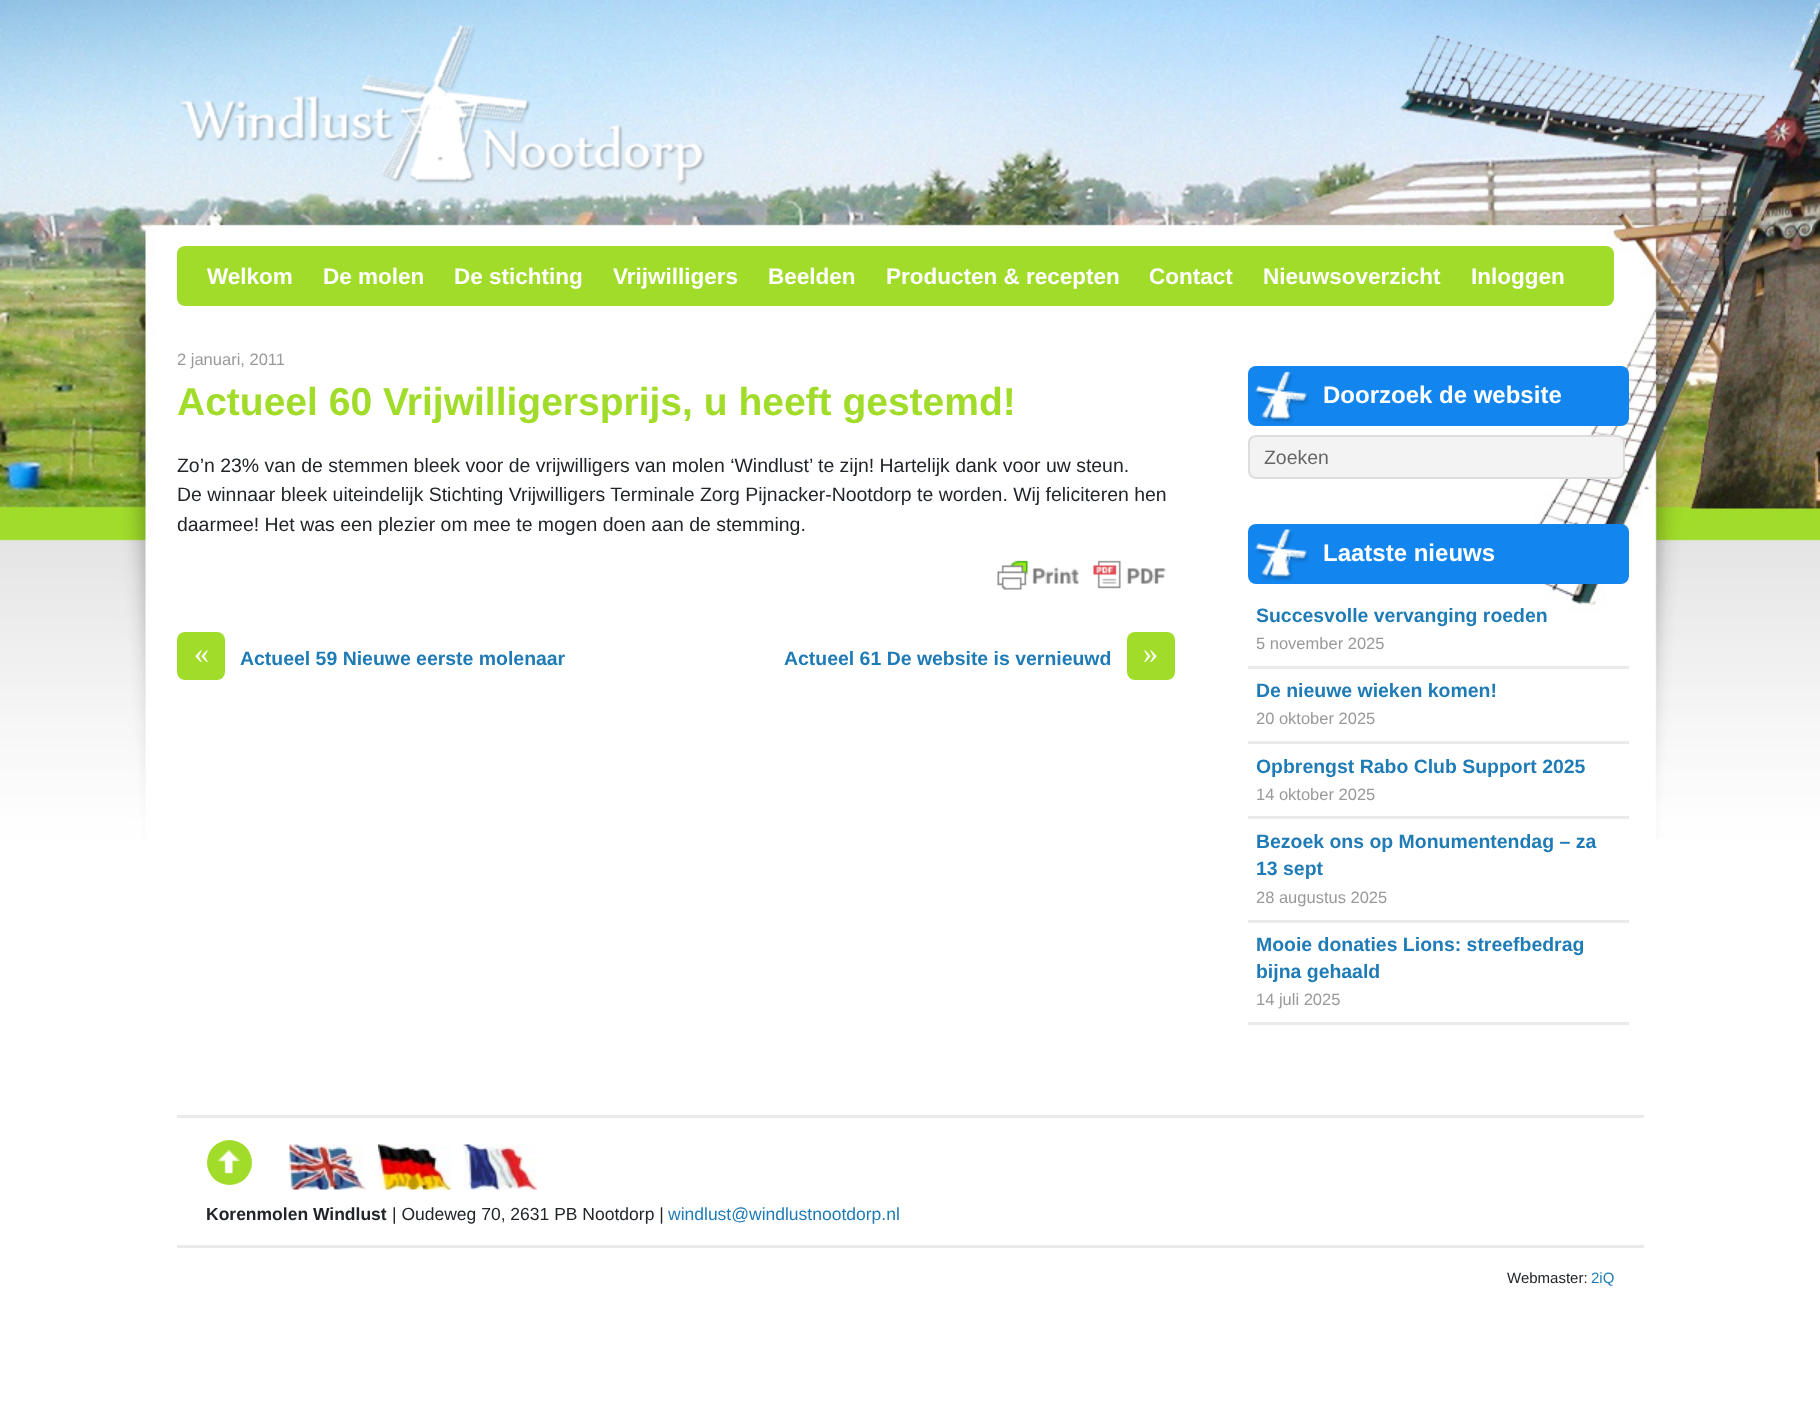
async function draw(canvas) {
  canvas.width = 1820
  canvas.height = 1401
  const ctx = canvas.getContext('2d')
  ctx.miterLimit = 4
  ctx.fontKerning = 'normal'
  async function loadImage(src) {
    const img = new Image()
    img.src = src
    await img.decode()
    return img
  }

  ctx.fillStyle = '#fff'
  ctx.fillRect(0, 0, 1820, 1401)
  ctx.drawImage(await loadImage('image0.png'), 0, 0, 1820, 839)
  ctx.drawImage(await loadImage('image1.png'), 181, 25, 524, 161)
  ctx.fillStyle = '#a1dc2b'
  ctx.beginPath()
  ctx.roundRect(177, 246, 1437, 60, 8)
  ctx.fill()
  ctx.font = 'bold 22.5px Liberation Sans'
  ctx.fillStyle = '#fff'
  ctx.fillText('Welkom', 207, 284)
  ctx.fillText('De molen', 323, 284)
  ctx.fillText('De stichting', 454, 284)
  ctx.fillText('Vrijwilligers', 613, 284)
  ctx.fillText('Beelden', 768, 284)
  ctx.fillText('Producten & recepten', 886, 284)
  ctx.fillText('Contact', 1149, 284)
  ctx.fillText('Nieuwsoverzicht', 1263, 284)
  ctx.fillText('Inloggen', 1471, 284)
  ctx.font = '16.5px Liberation Sans'
  ctx.fillStyle = '#999'
  ctx.fillText('2 januari, 2011', 177, 365)
  ctx.font = 'bold 39px Liberation Sans'
  ctx.fillStyle = '#a1dc2b'
  ctx.fillText('Actueel 60 Vrijwilligersprijs, u heeft gestemd!', 177, 415)
  ctx.font = '19.45px Liberation Sans'
  ctx.fillStyle = '#212529'
  ctx.fillText('Zo’n 23% van de stemmen bleek voor de vrijwilligers van molen ‘Windlust’ te zijn! Hartelijk dank voor uw steun.', 177, 472)
  ctx.fillText('De winnaar bleek uiteindelijk Stichting Vrijwilligers Terminale Zorg Pijnacker-Nootdorp te worden. Wij feliciteren hen', 177, 501)
  ctx.fillText('daarmee! Het was een plezier om mee te mogen doen aan de stemming.', 177, 531)
  ctx.drawImage(await loadImage('image2.png'), 997, 560, 169, 30)
  ctx.fillStyle = '#a1dc2b'
  ctx.beginPath()
  ctx.roundRect(177, 632, 48, 48, 8)
  ctx.fill()
  ctx.font = '30px Liberation Serif'
  ctx.fillStyle = '#fff'
  ctx.fillText('«', 194, 663)
  ctx.font = 'bold 19.45px Liberation Sans'
  ctx.fillStyle = '#1f7bb6'
  ctx.fillText('Actueel 59 Nieuwe eerste molenaar', 240, 665)
  ctx.fillText('Actueel 61 De website is vernieuwd', 784, 665)
  ctx.fillStyle = '#a1dc2b'
  ctx.beginPath()
  ctx.roundRect(1127, 632, 48, 48, 8)
  ctx.fill()
  ctx.font = '30px Liberation Serif'
  ctx.fillStyle = '#fff'
  ctx.fillText('»', 1143, 663)
  ctx.fillStyle = '#1285ee'
  ctx.beginPath()
  ctx.roundRect(1248, 366, 381, 60, 8)
  ctx.fill()
  ctx.drawImage(await loadImage('image3.png'), 1255, 371, 54, 53)
  ctx.font = 'bold 24px Liberation Sans'
  ctx.fillStyle = '#fff'
  ctx.fillText('Doorzoek de website', 1323, 403)
  ctx.fillStyle = '#f3f3f3'
  ctx.beginPath()
  ctx.roundRect(1249, 436, 375, 42, 7)
  ctx.fill()
  ctx.strokeStyle = '#ddd'
  ctx.lineWidth = 2
  ctx.stroke()
  ctx.font = '19.45px Liberation Sans'
  ctx.fillStyle = '#666'
  ctx.fillText('Zoeken', 1264, 464)
  ctx.fillStyle = '#1285ee'
  ctx.beginPath()
  ctx.roundRect(1248, 524, 381, 60, 8)
  ctx.fill()
  ctx.drawImage(await loadImage('image4.png'), 1255, 529, 54, 52)
  ctx.font = 'bold 24px Liberation Sans'
  ctx.fillStyle = '#fff'
  ctx.fillText('Laatste nieuws', 1323, 561)
  ctx.fillStyle = '#eaeaea'
  ctx.fillRect(1248, 666, 381, 3)
  ctx.font = 'bold 19.45px Liberation Sans'
  ctx.fillStyle = '#1f7bb6'
  ctx.fillText('Succesvolle vervanging roeden', 1256, 622)
  ctx.font = '16.5px Liberation Sans'
  ctx.fillStyle = '#999'
  ctx.fillText('5 november 2025', 1256, 649)
  ctx.fillStyle = '#eaeaea'
  ctx.fillRect(1248, 741, 381, 3)
  ctx.font = 'bold 19.45px Liberation Sans'
  ctx.fillStyle = '#1f7bb6'
  ctx.fillText('De nieuwe wieken komen!', 1256, 697)
  ctx.font = '16.5px Liberation Sans'
  ctx.fillStyle = '#999'
  ctx.fillText('20 oktober 2025', 1256, 724)
  ctx.fillStyle = '#eaeaea'
  ctx.fillRect(1248, 816, 381, 3)
  ctx.font = 'bold 19.45px Liberation Sans'
  ctx.fillStyle = '#1f7bb6'
  ctx.fillText('Opbrengst Rabo Club Support 2025', 1256, 773)
  ctx.font = '16.5px Liberation Sans'
  ctx.fillStyle = '#999'
  ctx.fillText('14 oktober 2025', 1256, 800)
  ctx.fillStyle = '#eaeaea'
  ctx.fillRect(1248, 920, 381, 3)
  ctx.font = 'bold 19.45px Liberation Sans'
  ctx.fillStyle = '#1f7bb6'
  ctx.fillText('Bezoek ons op Monumentendag – za', 1256, 848)
  ctx.fillText('13 sept', 1256, 875)
  ctx.font = '16.5px Liberation Sans'
  ctx.fillStyle = '#999'
  ctx.fillText('28 augustus 2025', 1256, 903)
  ctx.fillStyle = '#eaeaea'
  ctx.fillRect(1248, 1022, 381, 3)
  ctx.font = 'bold 19.45px Liberation Sans'
  ctx.fillStyle = '#1f7bb6'
  ctx.fillText('Mooie donaties Lions: streefbedrag', 1256, 951)
  ctx.fillText('bijna gehaald', 1256, 978)
  ctx.font = '16.5px Liberation Sans'
  ctx.fillStyle = '#999'
  ctx.fillText('14 juli 2025', 1256, 1005)
  ctx.fillStyle = '#eaeaea'
  ctx.fillRect(177, 1115, 1467, 3)
  ctx.fillStyle = '#a1dc2b'
  ctx.beginPath()
  ctx.arc(229.5, 1162.5, 22.5, 0, 2 * Math.PI)
  ctx.fill()
  ctx.drawImage(await loadImage('image5.png'), 217, 1149, 23, 25)
  ctx.drawImage(await loadImage('image6.png'), 289, 1144, 77, 46)
  ctx.drawImage(await loadImage('image7.png'), 378, 1144, 74, 46)
  ctx.drawImage(await loadImage('image8.png'), 463, 1144, 74, 46)
  ctx.font = 'bold 17.5px Liberation Sans'
  ctx.fillStyle = '#212529'
  ctx.fillText('Korenmolen Windlust', 206, 1220)
  ctx.font = '17.5px Liberation Sans'
  ctx.fillText('| Oudeweg 70, 2631 PB Nootdorp |', 392, 1220)
  ctx.fillStyle = '#1f7bb6'
  ctx.fillText('windlust@windlustnootdorp.nl', 668, 1220)
  ctx.fillStyle = '#eaeaea'
  ctx.fillRect(177, 1245, 1467, 3)
  ctx.font = '15px Liberation Sans'
  ctx.fillStyle = '#212529'
  ctx.fillText('Webmaster:', 1507, 1283)
  ctx.fillStyle = '#1f7bb6'
  ctx.fillText('2iQ', 1591, 1283)
}

draw(document.querySelector('canvas'))
